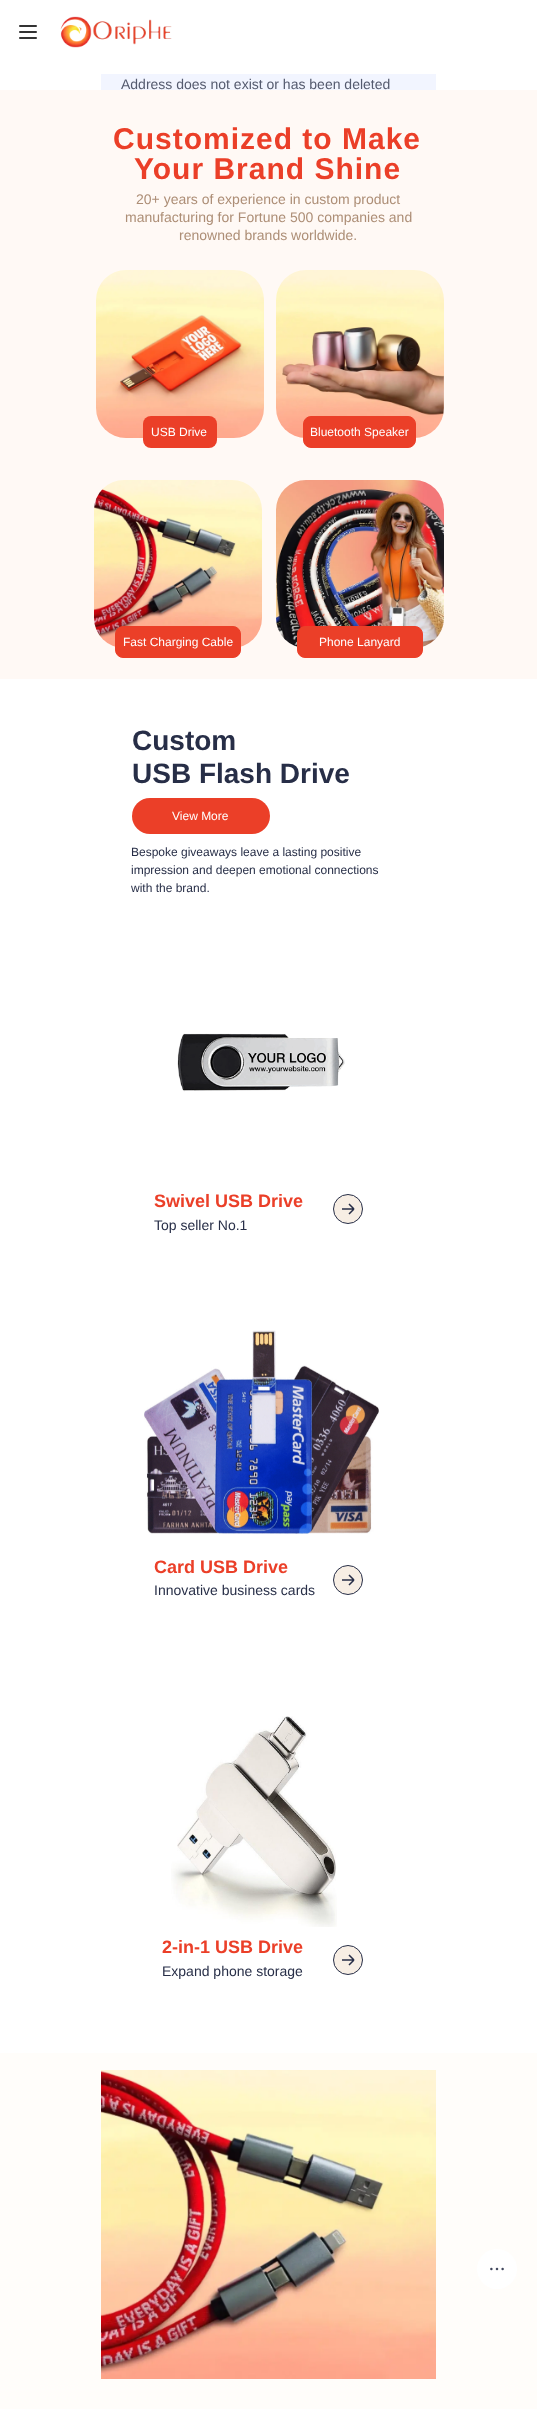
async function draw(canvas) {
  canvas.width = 537
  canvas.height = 2409
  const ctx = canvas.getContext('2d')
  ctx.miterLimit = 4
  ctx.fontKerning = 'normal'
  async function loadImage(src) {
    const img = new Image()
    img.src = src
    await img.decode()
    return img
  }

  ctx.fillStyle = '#fff'
  ctx.fillRect(0, 0, 537, 2409)
  ctx.drawImage(await loadImage('image0.png'), 19, 25, 18, 14)
  ctx.drawImage(await loadImage('image1.png'), 60, 16, 112, 32)
  ctx.fillStyle = '#f2f5ff'
  ctx.fillRect(101, 74, 335, 16)
  ctx.font = '14px Liberation Sans'
  ctx.fillStyle = '#545a6e'
  ctx.fillText('Address does not exist or has been deleted', 121, 89)
  ctx.fillStyle = '#fff9f5'
  ctx.fillRect(0, 90, 537, 589)
  ctx.letterSpacing = '1px'
  ctx.font = 'bold 30px Liberation Sans'
  ctx.fillStyle = '#eb3f28'
  ctx.fillText('Customized to Make', 113, 149)
  ctx.fillText('Your Brand Shine', 134, 179)
  ctx.letterSpacing = '0px'
  ctx.font = '14px Liberation Sans'
  ctx.fillStyle = '#ad8e76'
  ctx.fillText('20+ years of experience in custom product', 136, 204)
  ctx.fillText('manufacturing for Fortune 500 companies and', 125, 222)
  ctx.fillText('renowned brands worldwide.', 179, 240)
  ctx.drawImage(await loadImage('image2.png'), 96, 270, 168, 168)
  ctx.drawImage(await loadImage('image3.png'), 276, 270, 168, 168)
  ctx.fillStyle = '#eb3f28'
  ctx.beginPath()
  ctx.roundRect(143, 416, 74, 32, 8)
  ctx.fill()
  ctx.font = '12px Liberation Sans'
  ctx.fillStyle = '#fff'
  ctx.fillText('USB Drive', 151, 436)
  ctx.fillStyle = '#eb3f28'
  ctx.beginPath()
  ctx.roundRect(303.5, 416.5, 112, 31, 7.5)
  ctx.fill()
  ctx.strokeStyle = '#eb3f28'
  ctx.stroke()
  ctx.fillStyle = '#fff'
  ctx.fillText('Bluetooth Speaker', 310, 436)
  ctx.drawImage(await loadImage('image4.png'), 94, 480, 168, 167)
  ctx.drawImage(await loadImage('image5.png'), 276, 480, 168, 167)
  ctx.fillStyle = '#eb3f28'
  ctx.beginPath()
  ctx.roundRect(115.5, 626.5, 125, 31, 7.5)
  ctx.fill()
  ctx.stroke()
  ctx.fillStyle = '#fff'
  ctx.fillText('Fast Charging Cable', 123, 646)
  ctx.fillStyle = '#eb3f28'
  ctx.beginPath()
  ctx.roundRect(297.5, 626.5, 125, 31, 7.5)
  ctx.fill()
  ctx.stroke()
  ctx.fillStyle = '#fff'
  ctx.fillText('Phone Lanyard', 319, 646)
  ctx.font = 'bold 28px Liberation Sans'
  ctx.fillStyle = '#272e47'
  ctx.fillText('Custom', 132, 750)
  ctx.fillText('USB Flash Drive', 132, 783)
  ctx.fillStyle = '#eb3f28'
  ctx.beginPath()
  ctx.roundRect(132, 798, 138, 36, 18)
  ctx.fill()
  ctx.font = '12px Liberation Sans'
  ctx.fillStyle = '#fff'
  ctx.fillText('View More', 172, 820)
  ctx.fillStyle = '#272e47'
  ctx.fillText('Bespoke giveaways leave a lasting positive', 131, 856)
  ctx.fillText('impression and deepen emotional connections', 131, 874)
  ctx.fillText('with the brand.', 131, 892)
  ctx.drawImage(await loadImage('image6.png'), 177, 1033, 168, 59)
  ctx.font = 'bold 18px Liberation Sans'
  ctx.fillStyle = '#eb3f28'
  ctx.fillText('Swivel USB Drive', 154, 1207)
  ctx.fillStyle = '#f7eee4'
  ctx.beginPath()
  ctx.arc(348, 1209, 14.5, 0, 2 * Math.PI)
  ctx.fill()
  ctx.strokeStyle = '#272e47'
  ctx.stroke()
  ctx.beginPath()
  ctx.moveTo(342, 1209)
  ctx.lineTo(354, 1209)
  ctx.moveTo(354, 1209)
  ctx.lineTo(349, 1204)
  ctx.moveTo(354, 1209)
  ctx.lineTo(349, 1214)
  ctx.lineWidth = 1.5
  ctx.stroke()
  ctx.font = '14px Liberation Sans'
  ctx.fillStyle = '#272e47'
  ctx.fillText('Top seller No.1', 154, 1230)
  ctx.drawImage(await loadImage('image7.png'), 144, 1330, 235, 204)
  ctx.font = 'bold 18px Liberation Sans'
  ctx.fillStyle = '#eb3f28'
  ctx.fillText('Card USB Drive', 154, 1573)
  ctx.fillStyle = '#f7eee4'
  ctx.beginPath()
  ctx.arc(348, 1580, 14.5, 0, 2 * Math.PI)
  ctx.fill()
  ctx.lineWidth = 1
  ctx.stroke()
  ctx.beginPath()
  ctx.moveTo(342, 1580)
  ctx.lineTo(354, 1580)
  ctx.moveTo(354, 1580)
  ctx.lineTo(349, 1575)
  ctx.moveTo(354, 1580)
  ctx.lineTo(349, 1585)
  ctx.lineWidth = 1.5
  ctx.stroke()
  ctx.font = '14px Liberation Sans'
  ctx.fillStyle = '#272e47'
  ctx.fillText('Innovative business cards', 154, 1595)
  ctx.drawImage(await loadImage('image8.png'), 171, 1716, 166, 211)
  ctx.font = 'bold 18px Liberation Sans'
  ctx.fillStyle = '#eb3f28'
  ctx.fillText('2-in-1 USB Drive', 162, 1953)
  ctx.fillStyle = '#f7eee4'
  ctx.beginPath()
  ctx.arc(348, 1960, 14.5, 0, 2 * Math.PI)
  ctx.fill()
  ctx.lineWidth = 1
  ctx.stroke()
  ctx.beginPath()
  ctx.moveTo(342, 1960)
  ctx.lineTo(354, 1960)
  ctx.moveTo(354, 1960)
  ctx.lineTo(349, 1955)
  ctx.moveTo(354, 1960)
  ctx.lineTo(349, 1965)
  ctx.lineWidth = 1.5
  ctx.stroke()
  ctx.font = '14px Liberation Sans'
  ctx.fillStyle = '#272e47'
  ctx.fillText('Expand phone storage', 162, 1976)
  ctx.fillStyle = '#fffdfa'
  ctx.fillRect(0, 2053, 537, 356)
  ctx.drawImage(await loadImage('image9.png'), 101, 2070, 335, 309)
  ctx.fillStyle = '#fff'
  ctx.beginPath()
  ctx.arc(497, 2269, 20, 0, 2 * Math.PI)
  ctx.fill()
  ctx.drawImage(await loadImage('image10.png'), 490, 2267, 14, 4)
}

draw(document.querySelector('canvas'))
